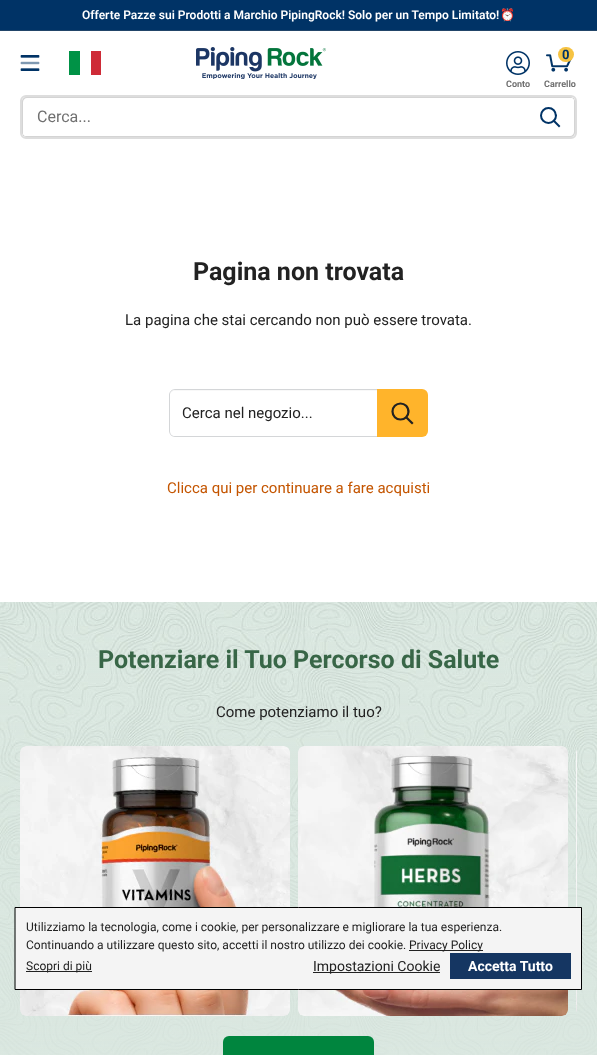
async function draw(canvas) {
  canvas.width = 597
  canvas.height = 1055
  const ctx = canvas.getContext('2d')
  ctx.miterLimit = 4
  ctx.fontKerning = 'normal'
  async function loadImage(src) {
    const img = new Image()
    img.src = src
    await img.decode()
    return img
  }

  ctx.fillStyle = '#fff'
  ctx.fillRect(0, 0, 597, 1055)
  ctx.fillStyle = '#036'
  ctx.fillRect(0, 0, 597, 30)
  ctx.fillStyle = '#224569'
  ctx.fillRect(0, 30, 597, 1)
  ctx.font = '600 12px Roboto'
  ctx.fillStyle = '#fff'
  ctx.fillText('Offerte Pazze sui Prodotti a Marchio PipingRock! Solo per un Tempo Limitato!', 82, 19)
  ctx.font = 'bold 12px Noto Color Emoji'
  ctx.fillText('⏰', 500, 19)
  ctx.drawImage(await loadImage('image0.png'), 20, 55, 20, 16)
  ctx.fillStyle = '#009246'
  ctx.fillRect(69, 51, 11, 24)
  ctx.fillStyle = '#ce2b37'
  ctx.fillRect(91, 51, 10, 24)
  ctx.drawImage(await loadImage('image1.png'), 196, 47, 130, 32)
  ctx.drawImage(await loadImage('image2.png'), 506, 51, 24, 24)
  ctx.font = 'bold 9px Roboto'
  ctx.fillStyle = '#707070'
  ctx.fillText('Conto', 506, 87)
  ctx.drawImage(await loadImage('image3.png'), 546, 54, 26, 18)
  ctx.fillStyle = '#f6c342'
  ctx.beginPath()
  ctx.roundRect(558, 47, 16, 15, 7.5)
  ctx.fill()
  ctx.font = 'bold 13px Roboto'
  ctx.fillStyle = '#036'
  ctx.fillText('0', 562, 59)
  ctx.font = 'bold 9px Roboto'
  ctx.fillStyle = '#707070'
  ctx.fillText('Carrello', 544, 87)
  ctx.fillStyle = '#d4d4d4'
  ctx.beginPath()
  ctx.moveTo(23, 135)
  ctx.bezierCurveTo(23, 136, 25, 137, 26, 137)
  ctx.lineTo(571, 137)
  ctx.bezierCurveTo(573, 137, 575, 135, 575, 133)
  ctx.lineTo(575, 101)
  ctx.bezierCurveTo(575, 100, 574, 98, 573, 98)
  ctx.lineTo(574, 100)
  ctx.lineTo(574, 132)
  ctx.bezierCurveTo(574, 134, 572, 136, 570, 136)
  ctx.lineTo(25, 136)
  ctx.closePath()
  ctx.fill()
  ctx.fillStyle = '#7070704d'
  ctx.beginPath()
  ctx.moveTo(27, 98)
  ctx.lineTo(572, 98)
  ctx.lineTo(574, 99)
  ctx.bezierCurveTo(574, 98, 572, 97, 571, 97)
  ctx.lineTo(26, 97)
  ctx.bezierCurveTo(24, 97, 22, 99, 22, 101)
  ctx.lineTo(22, 133)
  ctx.bezierCurveTo(22, 134, 23, 136, 24, 136)
  ctx.lineTo(23, 134)
  ctx.lineTo(23, 102)
  ctx.bezierCurveTo(23, 100, 25, 98, 27, 98)
  ctx.closePath()
  ctx.fill()
  ctx.beginPath()
  ctx.roundRect(21, 96, 555, 42, 5)
  ctx.strokeStyle = '#ddd'
  ctx.lineWidth = 2
  ctx.stroke()
  ctx.font = '16px Roboto'
  ctx.fillStyle = '#707070'
  ctx.fillText('Cerca...', 37, 122)
  ctx.beginPath()
  ctx.moveTo(559, 126)
  ctx.lineTo(554, 121)
  ctx.strokeStyle = '#036'
  ctx.lineCap = 'square'
  ctx.stroke()
  ctx.beginPath()
  ctx.arc(548.5, 115.5, 7.5, 0, 2 * Math.PI)
  ctx.stroke()
  ctx.font = 'bold 25px Roboto'
  ctx.fillStyle = '#222'
  ctx.fillText('Pagina non trovata', 193, 280)
  ctx.font = '15px Roboto'
  ctx.fillText('La pagina che stai cercando non può essere trovata.', 125, 325)
  ctx.fillStyle = '#f8f8f8'
  ctx.beginPath()
  ctx.moveTo(175, 391)
  ctx.lineTo(377, 391)
  ctx.lineTo(377, 390)
  ctx.lineTo(174, 390)
  ctx.bezierCurveTo(171, 391, 170, 393, 170, 396)
  ctx.bezierCurveTo(170, 393, 172, 391, 175, 391)
  ctx.closePath()
  ctx.fill()
  ctx.fillStyle = '#d4d6d8'
  ctx.beginPath()
  ctx.moveTo(175, 389)
  ctx.lineTo(377, 389)
  ctx.lineTo(377, 437)
  ctx.lineTo(175, 437)
  ctx.bezierCurveTo(172, 437, 169, 434, 169, 431)
  ctx.lineTo(169, 395)
  ctx.bezierCurveTo(169, 392, 172, 389, 175, 389)
  ctx.closePath()
  ctx.moveTo(175, 390)
  ctx.lineTo(377, 390)
  ctx.lineTo(377, 436)
  ctx.lineTo(175, 436)
  ctx.bezierCurveTo(172, 436, 170, 434, 170, 431)
  ctx.lineTo(170, 395)
  ctx.bezierCurveTo(170, 392, 172, 390, 175, 390)
  ctx.closePath()
  ctx.fill('evenodd')
  ctx.fillStyle = '#222'
  ctx.fillText('Cerca nel negozio...', 182, 418)
  ctx.fillStyle = '#ffb42b'
  ctx.beginPath()
  ctx.roundRect(377, 389, 51, 48, [0, 6, 6, 0])
  ctx.fill()
  ctx.beginPath()
  ctx.moveTo(412, 423)
  ctx.lineTo(406.5, 417.5)
  ctx.strokeStyle = '#222'
  ctx.lineWidth = 2.2
  ctx.stroke()
  ctx.beginPath()
  ctx.arc(400.5, 411.5, 8, 0, 2 * Math.PI)
  ctx.stroke()
  ctx.fillStyle = '#c45500'
  ctx.fillText('Clicca qui per continuare a fare acquisti', 167, 493)
  ctx.drawImage(await loadImage('image4.png'), 0, 602, 597, 453)
  ctx.font = 'bold 25px Roboto'
  ctx.fillStyle = '#386647'
  ctx.fillText('Potenziare il Tuo Percorso di Salute', 98, 668)
  ctx.font = '15px Roboto'
  ctx.fillStyle = '#222'
  ctx.fillText('Come potenziamo il tuo?', 216, 717)
  ctx.drawImage(await loadImage('image5.png'), 20, 746, 270, 270)
  ctx.drawImage(await loadImage('image6.png'), 298, 746, 270, 270)
  ctx.drawImage(await loadImage('image7.png'), 576, 750, 1, 262)
  ctx.fillStyle = '#00853e'
  ctx.beginPath()
  ctx.roundRect(223, 1036, 151, 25, 6)
  ctx.fill()
  ctx.fillStyle = '#f4f4f4'
  ctx.beginPath()
  ctx.rect(15.5, 907.5, 566, 82)
  ctx.fill()
  ctx.strokeStyle = '#000'
  ctx.lineWidth = 1
  ctx.stroke()
  ctx.font = '12px Roboto'
  ctx.fillStyle = '#222'
  ctx.fillText('Utilizziamo la tecnologia, come i cookie, per personalizzare e migliorare la tua esperienza.', 26, 931)
  ctx.fillText('Continuando a utilizzare questo sito, accetti il nostro utilizzo dei cookie.', 26, 949)
  ctx.fillRect(409, 950, 74, 1)
  ctx.fillText('Privacy Policy', 409, 949)
  ctx.fillRect(26, 971, 66, 1)
  ctx.fillText('Scopri di più', 26, 970)
  ctx.fillRect(313, 972, 127, 1)
  ctx.font = '14px Roboto'
  ctx.fillText('Impostazioni Cookie', 313, 971)
  ctx.fillStyle = '#153662'
  ctx.fillRect(450, 953, 121, 26)
  ctx.font = 'bold 14px Roboto'
  ctx.fillStyle = '#fff'
  ctx.fillText('Accetta Tutto', 468, 971)
}

draw(document.querySelector('canvas'))
